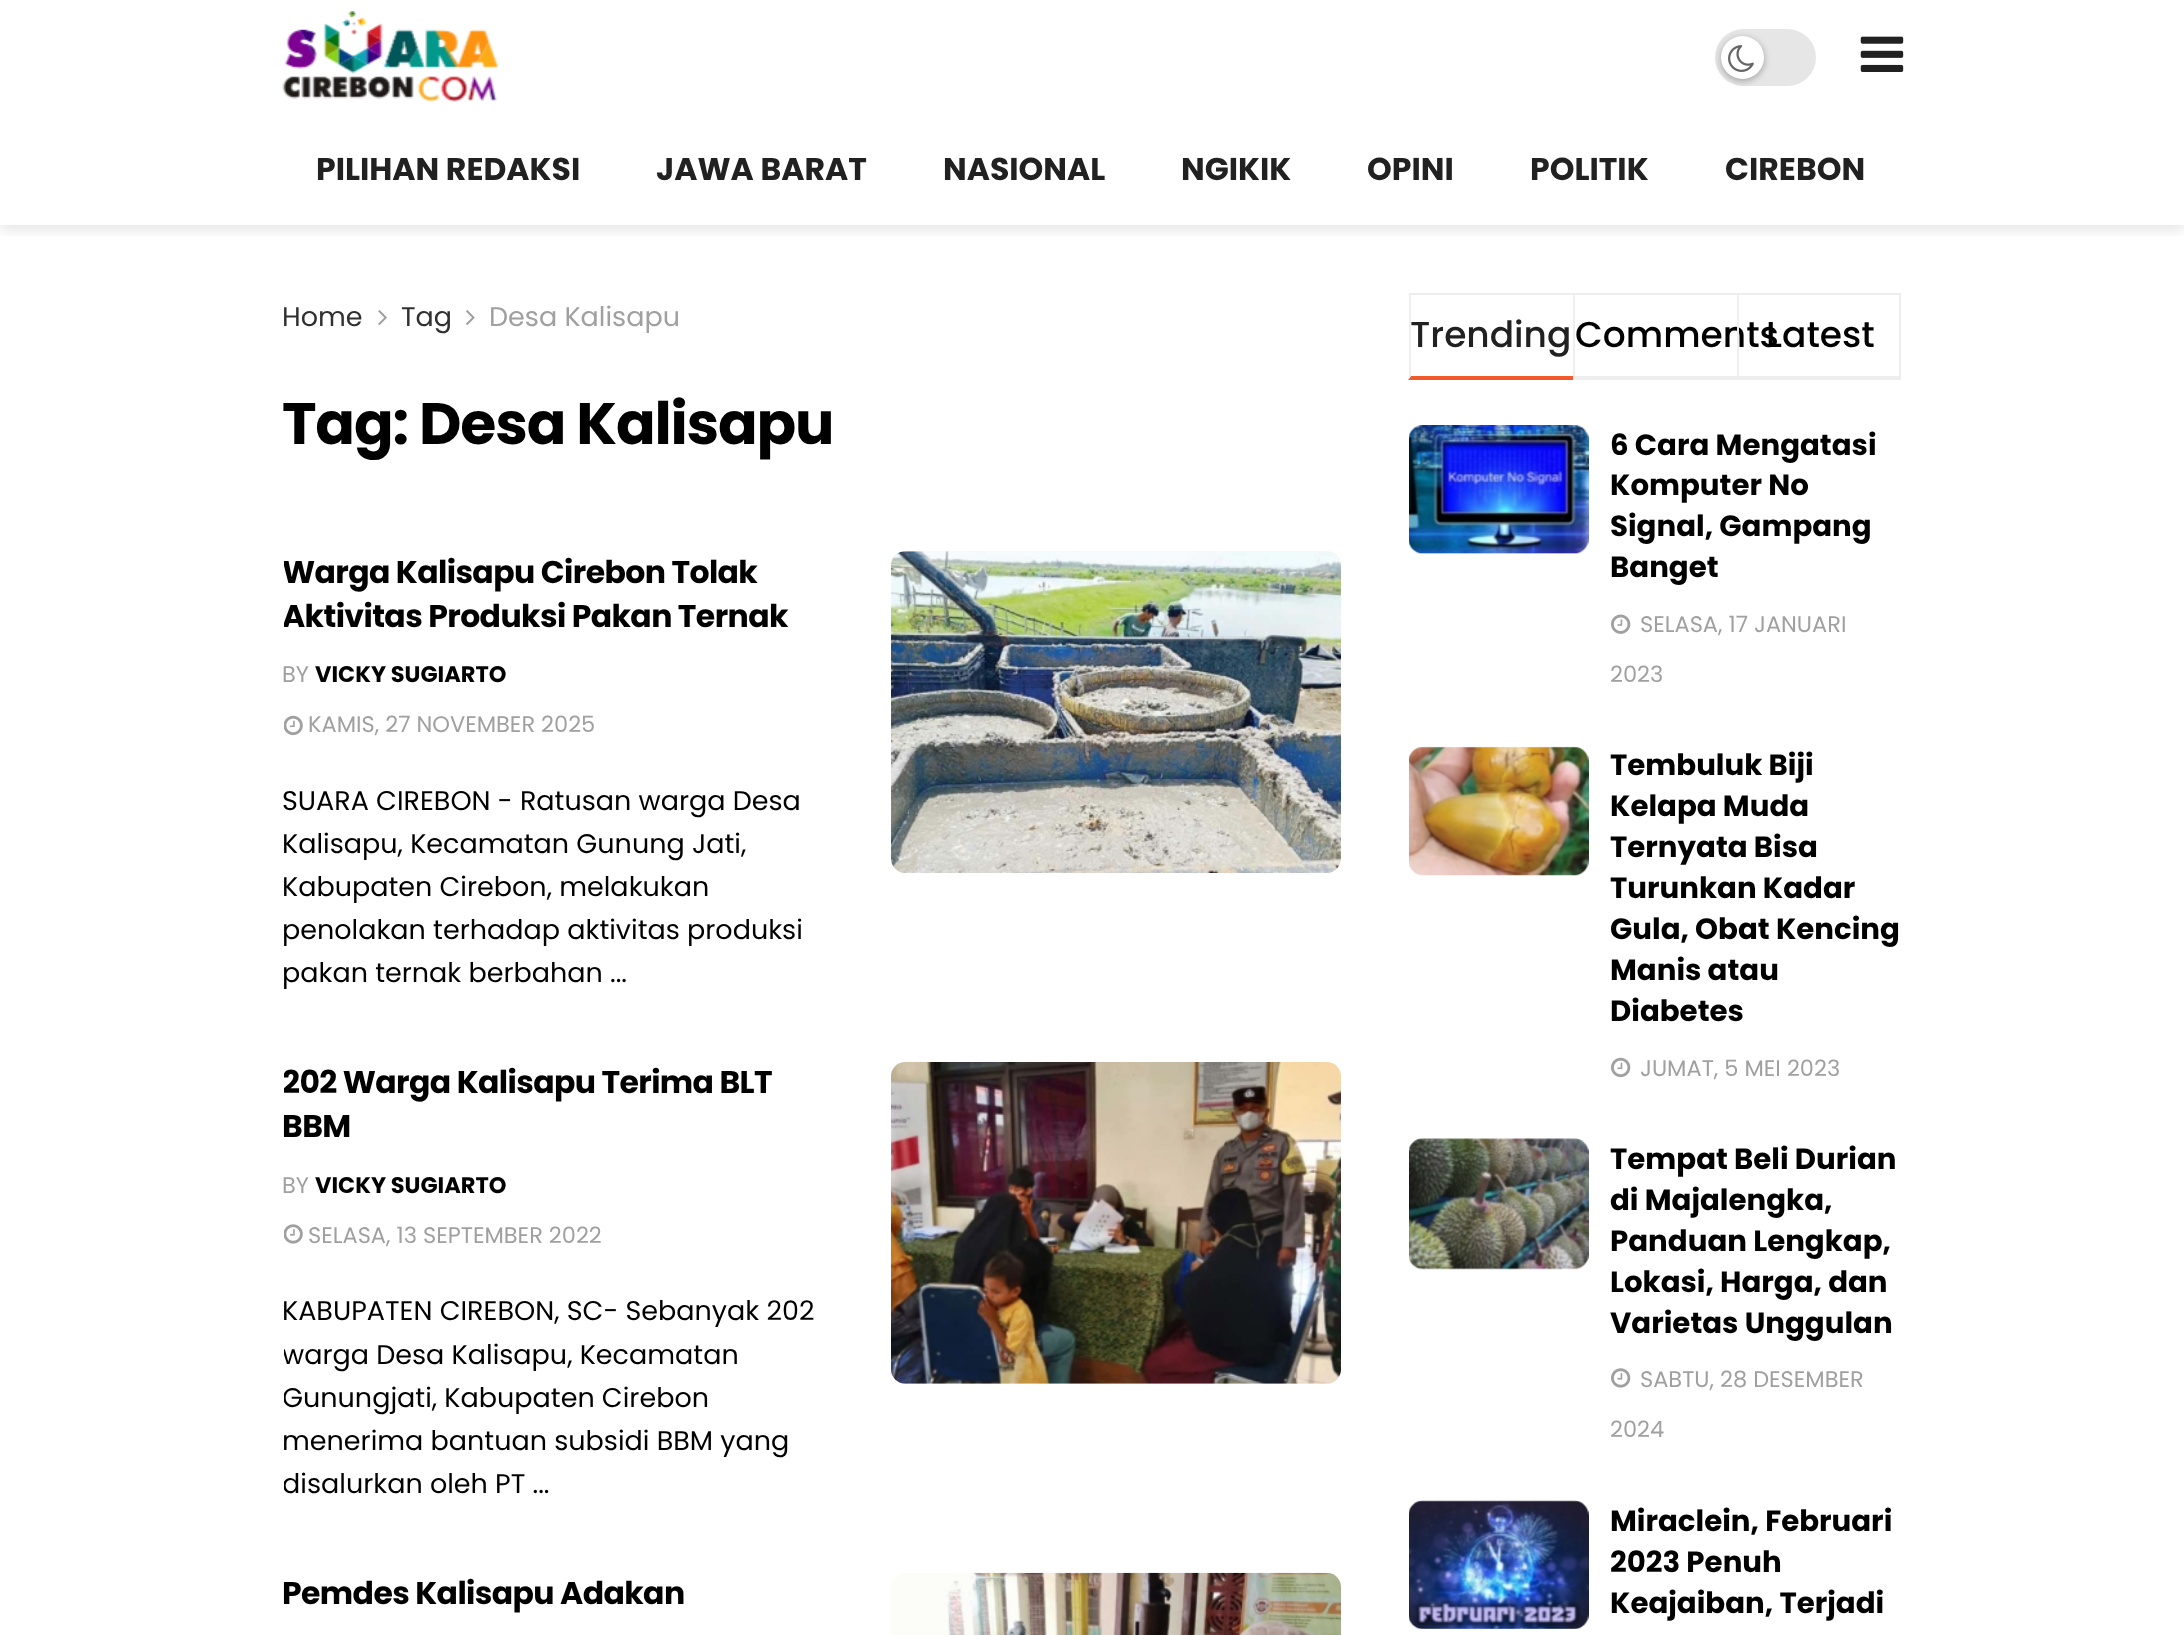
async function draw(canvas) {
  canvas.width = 2184
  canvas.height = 1635
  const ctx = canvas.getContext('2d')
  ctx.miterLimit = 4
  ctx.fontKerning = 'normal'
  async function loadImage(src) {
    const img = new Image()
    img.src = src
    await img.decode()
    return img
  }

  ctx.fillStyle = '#fff'
  ctx.fillRect(0, 0, 2184, 1635)
  ctx.save()
  ctx.beginPath()
  ctx.rect(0, 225, 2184, 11)
  ctx.clip()
  ctx.fillStyle = '#0000001a'
  ctx.filter = 'blur(7px)'
  ctx.beginPath()
  ctx.rect(0, 5, 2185, 225)
  ctx.fill()
  ctx.filter = 'none'
  ctx.restore()
  ctx.drawImage(await loadImage('image0.png'), 282, 11, 216, 91)
  ctx.fillStyle = '#e6e6e6'
  ctx.beginPath()
  ctx.roundRect(1715, 29, 101, 57, 28.5)
  ctx.fill()
  ctx.fillStyle = '#0000004d'
  ctx.filter = 'blur(3.5px)'
  ctx.beginPath()
  ctx.roundRect(1721, 38, 43, 43, 21.5)
  ctx.fill()
  ctx.filter = 'none'
  ctx.fillStyle = '#fff'
  ctx.beginPath()
  ctx.arc(1742.5, 57.5, 21.5, 0, 2 * Math.PI)
  ctx.fill()
  ctx.drawImage(await loadImage('image1.png'), 1728, 45, 26, 27)
  ctx.drawImage(await loadImage('image2.png'), 1860, 36, 44, 36)
  ctx.font = 'bold 31.5px Poppins'
  ctx.fillStyle = '#212121'
  ctx.fillText('PILIHAN REDAKSI', 316, 180)
  ctx.fillText('JAWA BARAT', 656, 180)
  ctx.fillText('NASIONAL', 943, 180)
  ctx.fillText('NGIKIK', 1181, 180)
  ctx.fillText('OPINI', 1367, 180)
  ctx.fillText('POLITIK', 1530, 180)
  ctx.fillText('CIREBON', 1725, 180)
  ctx.font = '27px Poppins'
  ctx.fillStyle = '#303030'
  ctx.fillText('Home', 282, 326)
  ctx.drawImage(await loadImage('image3.png'), 378, 310, 9, 15)
  ctx.fillText('Tag', 401, 326)
  ctx.drawImage(await loadImage('image4.png'), 466, 310, 9, 15)
  ctx.fillStyle = '#a0a0a0'
  ctx.fillText('Desa Kalisapu', 489, 326)
  ctx.letterSpacing = '-1.2px'
  ctx.font = 'bold 58.5px Poppins'
  ctx.fillStyle = '#000'
  ctx.fillText('Tag: Desa Kalisapu', 282, 444)
  ctx.save()
  ctx.beginPath()
  ctx.rect(284, 551, 540, 444)
  ctx.clip()
  ctx.letterSpacing = '-0.6px'
  ctx.font = 'bold 31.5px Poppins'
  ctx.fillText('Warga Kalisapu Cirebon Tolak', 282, 583)
  ctx.fillText('Aktivitas Produksi Pakan Ternak', 282, 627)
  ctx.restore()
  ctx.letterSpacing = '0px'
  ctx.font = '22.5px Poppins'
  ctx.fillStyle = '#a0a0a0'
  ctx.fillText('BY', 282, 682)
  ctx.font = 'bold 22.5px Poppins'
  ctx.fillStyle = '#000'
  ctx.fillText('VICKY SUGIARTO', 315, 682)
  ctx.drawImage(await loadImage('image5.png'), 284, 715, 19, 21)
  ctx.font = '22.5px Poppins'
  ctx.fillStyle = '#a0a0a0'
  ctx.fillText('KAMIS, 27 NOVEMBER 2025', 308, 732)
  ctx.font = '27px Poppins'
  ctx.fillStyle = '#000'
  ctx.fillText('SUARA CIREBON - Ratusan warga Desa', 282, 810)
  ctx.fillText('Kalisapu, Kecamatan Gunung Jati,', 282, 853)
  ctx.fillText('Kabupaten Cirebon, melakukan', 282, 896)
  ctx.fillText('penolakan terhadap aktivitas produksi', 282, 939)
  ctx.fillText('pakan ternak berbahan ...', 282, 982)
  ctx.fillStyle = '#f7f7f7'
  ctx.beginPath()
  ctx.roundRect(891, 551, 450, 322, 14)
  ctx.fill()
  ctx.drawImage(await loadImage('image6.png'), 891, 551, 450, 322)
  ctx.save()
  ctx.beginPath()
  ctx.rect(284, 1062, 540, 443)
  ctx.clip()
  ctx.letterSpacing = '-0.6px'
  ctx.font = 'bold 31.5px Poppins'
  ctx.fillStyle = '#000'
  ctx.fillText('202 Warga Kalisapu Terima BLT', 282, 1093)
  ctx.restore()
  ctx.letterSpacing = '-0.6px'
  ctx.font = 'bold 31.5px Poppins'
  ctx.fillStyle = '#000'
  ctx.fillText('BBM', 282, 1137)
  ctx.letterSpacing = '0px'
  ctx.font = '22.5px Poppins'
  ctx.fillStyle = '#a0a0a0'
  ctx.fillText('BY', 282, 1193)
  ctx.font = 'bold 22.5px Poppins'
  ctx.fillStyle = '#000'
  ctx.fillText('VICKY SUGIARTO', 315, 1193)
  ctx.drawImage(await loadImage('image7.png'), 284, 1224, 19, 20)
  ctx.font = '22.5px Poppins'
  ctx.fillStyle = '#a0a0a0'
  ctx.fillText('SELASA, 13 SEPTEMBER 2022', 308, 1243)
  ctx.font = '27px Poppins'
  ctx.fillStyle = '#000'
  ctx.fillText('KABUPATEN CIREBON, SC- Sebanyak 202', 282, 1320)
  ctx.save()
  ctx.beginPath()
  ctx.rect(284, 1062, 540, 443)
  ctx.clip()
  ctx.fillText('warga Desa Kalisapu, Kecamatan', 282, 1364)
  ctx.fillText('Gunungjati, Kabupaten Cirebon', 282, 1407)
  ctx.restore()
  ctx.fillText('menerima bantuan subsidi BBM yang', 282, 1450)
  ctx.save()
  ctx.beginPath()
  ctx.rect(284, 1062, 540, 443)
  ctx.clip()
  ctx.fillText('disalurkan oleh PT ...', 282, 1493)
  ctx.restore()
  ctx.fillStyle = '#f7f7f7'
  ctx.beginPath()
  ctx.roundRect(891, 1062, 450, 322, 14)
  ctx.fill()
  ctx.drawImage(await loadImage('image8.png'), 891, 1062, 450, 322)
  ctx.letterSpacing = '-0.6px'
  ctx.font = 'bold 31.5px Poppins'
  ctx.fillStyle = '#000'
  ctx.fillText('Pemdes Kalisapu Adakan', 282, 1604)
  ctx.drawImage(await loadImage('image9.png'), 891, 1572, 450, 63)
  ctx.fillStyle = '#eee'
  ctx.fillRect(1409, 293, 492, 2)
  ctx.fillStyle = '#f25a2b'
  ctx.beginPath()
  ctx.moveTo(1573, 380)
  ctx.lineTo(1408, 380)
  ctx.lineTo(1411, 376)
  ctx.lineTo(1573, 376)
  ctx.closePath()
  ctx.fill()
  ctx.save()
  ctx.beginPath()
  ctx.rect(1409, 293, 495, 87)
  ctx.clip()
  ctx.fillStyle = '#eee'
  ctx.beginPath()
  ctx.moveTo(1408, 380)
  ctx.lineTo(1408, 292)
  ctx.lineTo(1411, 295)
  ctx.lineTo(1411, 376)
  ctx.closePath()
  ctx.fill()
  ctx.restore()
  ctx.letterSpacing = '0px'
  ctx.font = '500 36px Poppins'
  ctx.fillStyle = '#212121'
  ctx.fillText('Trending', 1410, 347)
  ctx.fillStyle = '#eee'
  ctx.fillRect(1573, 376, 164, 4)
  ctx.fillRect(1573, 293, 2, 87)
  ctx.fillStyle = '#000'
  ctx.fillText('Comments', 1575, 347)
  ctx.fillStyle = '#eee'
  ctx.fillRect(1899, 293, 2, 87)
  ctx.fillRect(1737, 376, 164, 4)
  ctx.fillRect(1737, 293, 2, 87)
  ctx.fillStyle = '#000'
  ctx.fillText('Latest', 1766, 347)
  ctx.fillStyle = '#f7f7f7'
  ctx.beginPath()
  ctx.roundRect(1409, 425, 180, 129, 14)
  ctx.fill()
  ctx.drawImage(await loadImage('image10.png'), 1409, 425, 180, 129)
  ctx.font = 'bold 29.25px Poppins'
  ctx.fillStyle = '#000'
  ctx.fillText('6 Cara Mengatasi', 1610, 455)
  ctx.fillText('Komputer No', 1610, 495)
  ctx.fillText('Signal, Gampang', 1610, 536)
  ctx.fillText('Banget', 1610, 577)
  ctx.drawImage(await loadImage('image11.png'), 1611, 614, 20, 20)
  ctx.font = '22.5px Poppins'
  ctx.fillStyle = '#a0a0a0'
  ctx.fillText('SELASA, 17 JANUARI', 1640, 632)
  ctx.fillText('2023', 1610, 682)
  ctx.fillStyle = '#f7f7f7'
  ctx.beginPath()
  ctx.roundRect(1409, 747, 180, 128, 14)
  ctx.fill()
  ctx.drawImage(await loadImage('image12.png'), 1409, 746, 180, 130)
  ctx.font = 'bold 29.25px Poppins'
  ctx.fillStyle = '#000'
  ctx.fillText('Tembuluk Biji', 1610, 775)
  ctx.fillText('Kelapa Muda', 1610, 816)
  ctx.fillText('Ternyata Bisa', 1610, 857)
  ctx.fillText('Turunkan Kadar', 1610, 898)
  ctx.fillText('Gula, Obat Kencing', 1610, 939)
  ctx.fillText('Manis atau', 1610, 980)
  ctx.fillText('Diabetes', 1610, 1021)
  ctx.drawImage(await loadImage('image13.png'), 1611, 1057, 20, 21)
  ctx.font = '22.5px Poppins'
  ctx.fillStyle = '#a0a0a0'
  ctx.fillText('JUMAT, 5 MEI 2023', 1640, 1076)
  ctx.fillStyle = '#f7f7f7'
  ctx.beginPath()
  ctx.roundRect(1409, 1139, 180, 130, 14)
  ctx.fill()
  ctx.drawImage(await loadImage('image15.png'), 1409, 1139, 10, 9)
  ctx.drawImage(await loadImage('image14.png'), 1409, 1138, 180, 132)
  ctx.font = 'bold 29.25px Poppins'
  ctx.fillStyle = '#000'
  ctx.fillText('Tempat Beli Durian', 1610, 1169)
  ctx.fillText('di Majalengka,', 1610, 1210)
  ctx.fillText('Panduan Lengkap,', 1610, 1251)
  ctx.fillText('Lokasi, Harga, dan', 1610, 1292)
  ctx.fillText('Varietas Unggulan', 1610, 1333)
  ctx.drawImage(await loadImage('image16.png'), 1611, 1368, 20, 20)
  ctx.font = '22.5px Poppins'
  ctx.fillStyle = '#a0a0a0'
  ctx.fillText('SABTU, 28 DESEMBER', 1640, 1387)
  ctx.fillText('2024', 1610, 1437)
  ctx.fillStyle = '#f7f7f7'
  ctx.beginPath()
  ctx.roundRect(1409, 1501, 180, 128, 14)
  ctx.fill()
  ctx.fillStyle = '#fbfbfb'
  ctx.fillRect(1415, 1502, 1, 1)
  ctx.drawImage(await loadImage('image17.png'), 1409, 1500, 180, 129)
  ctx.font = 'bold 29.25px Poppins'
  ctx.fillStyle = '#000'
  ctx.fillText('Miraclein, Februari', 1610, 1531)
  ctx.fillText('2023 Penuh', 1610, 1572)
  ctx.fillText('Keajaiban, Terjadi', 1610, 1613)
}

draw(document.querySelector('canvas'))
